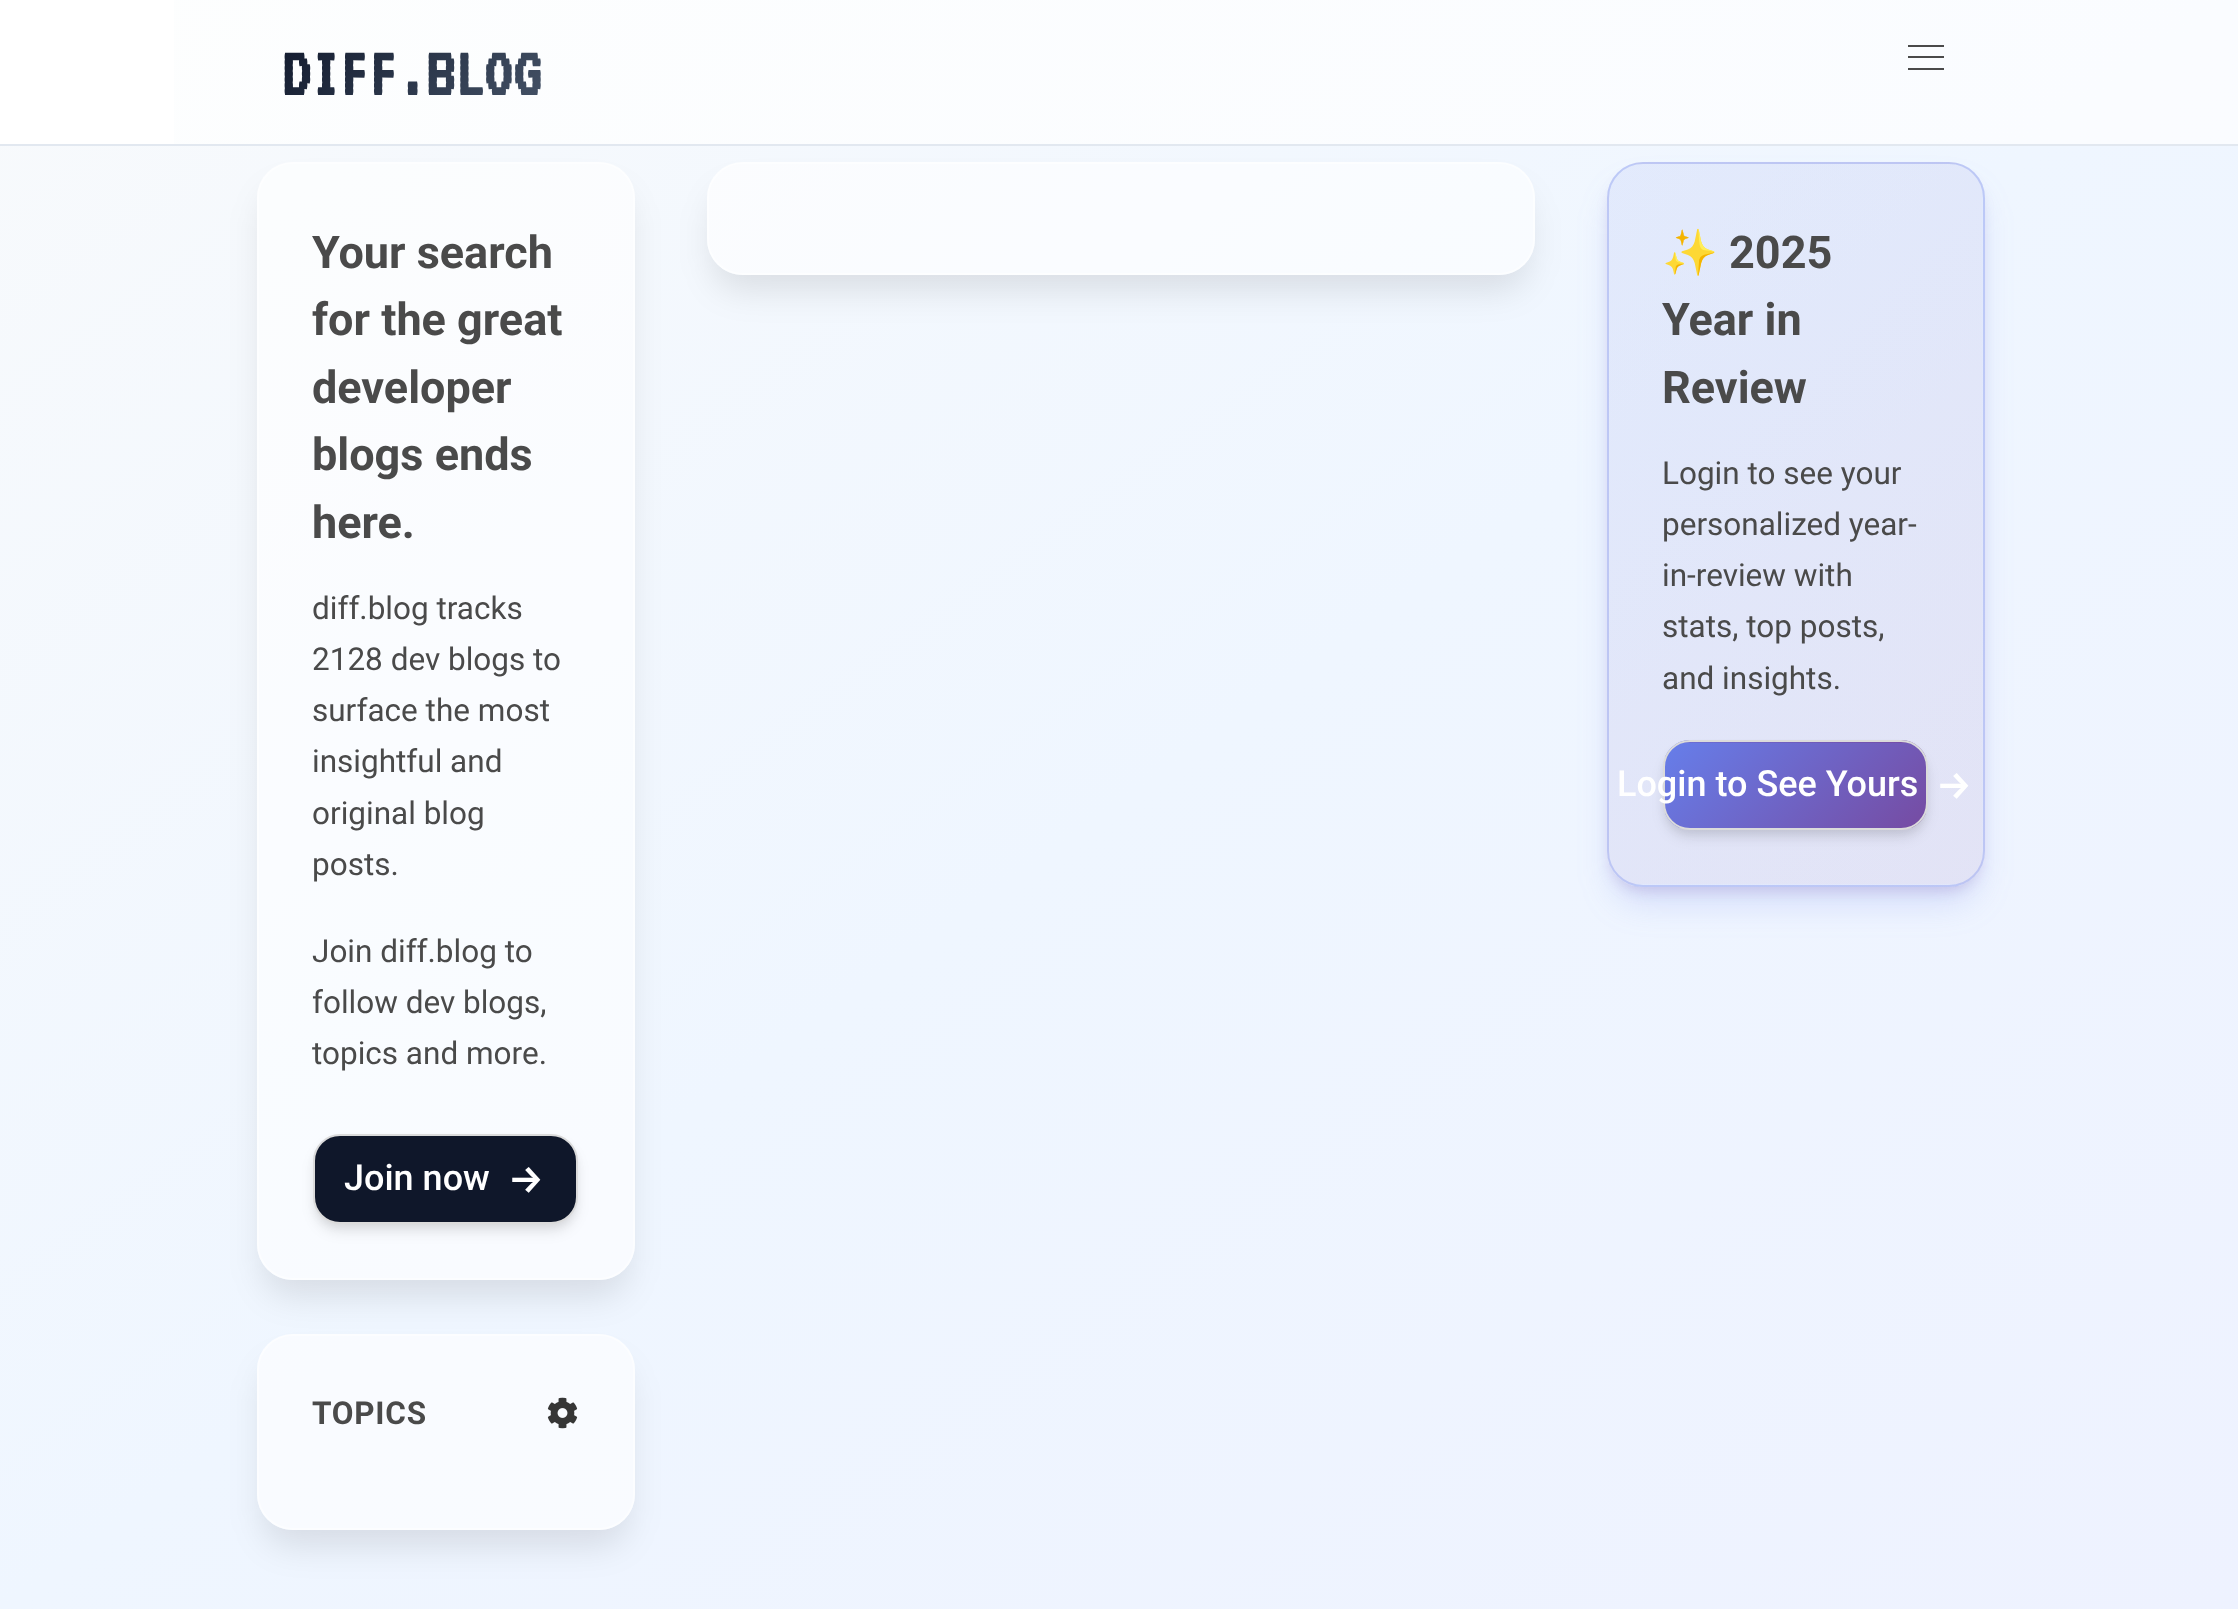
async function draw(canvas) {
  canvas.width = 2238
  canvas.height = 1609
  const ctx = canvas.getContext('2d')
  ctx.miterLimit = 4
  ctx.fontKerning = 'normal'
  async function loadImage(src) {
    const img = new Image()
    img.src = src
    await img.decode()
    return img
  }
  let gradient

  ctx.fillStyle = '#fff'
  ctx.fillRect(0, 0, 2238, 1609)
  gradient = ctx.createLinearGradient(356, -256, 1883, 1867)
  gradient.addColorStop(0, '#f8fafc')
  gradient.addColorStop(0.5, '#eff6ff')
  gradient.addColorStop(1, '#eef2ff')
  ctx.fillStyle = gradient
  ctx.fillRect(0, 146, 2238, 1463)
  gradient = ctx.createLinearGradient(356, -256, 1883, 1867)
  gradient.addColorStop(0, '#fdfefe')
  gradient.addColorStop(0.5, '#fafcff')
  gradient.addColorStop(1, '#fafbff')
  ctx.fillStyle = gradient
  ctx.fillRect(174, 0, 2064, 144)
  ctx.save()
  ctx.beginPath()
  ctx.moveTo(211, 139)
  ctx.lineTo(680, 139)
  ctx.lineTo(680, 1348)
  ctx.lineTo(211, 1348)
  ctx.closePath()
  ctx.moveTo(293, 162)
  ctx.lineTo(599, 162)
  ctx.bezierCurveTo(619, 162, 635, 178, 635, 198)
  ctx.lineTo(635, 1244)
  ctx.bezierCurveTo(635, 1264, 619, 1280, 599, 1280)
  ctx.lineTo(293, 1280)
  ctx.bezierCurveTo(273, 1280, 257, 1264, 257, 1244)
  ctx.lineTo(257, 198)
  ctx.bezierCurveTo(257, 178, 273, 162, 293, 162)
  ctx.closePath()
  ctx.clip('evenodd')
  ctx.fillStyle = '#0000001a'
  ctx.filter = 'blur(17px)'
  ctx.beginPath()
  ctx.roundRect(263, 191, 365, 1105, 29)
  ctx.fill()
  ctx.filter = 'none'
  ctx.restore()
  ctx.save()
  ctx.beginPath()
  ctx.moveTo(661, 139)
  ctx.lineTo(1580, 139)
  ctx.lineTo(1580, 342)
  ctx.lineTo(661, 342)
  ctx.closePath()
  ctx.moveTo(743, 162)
  ctx.lineTo(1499, 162)
  ctx.bezierCurveTo(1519, 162, 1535, 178, 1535, 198)
  ctx.lineTo(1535, 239)
  ctx.bezierCurveTo(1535, 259, 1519, 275, 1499, 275)
  ctx.lineTo(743, 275)
  ctx.bezierCurveTo(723, 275, 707, 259, 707, 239)
  ctx.lineTo(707, 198)
  ctx.bezierCurveTo(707, 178, 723, 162, 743, 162)
  ctx.closePath()
  ctx.clip('evenodd')
  ctx.fillStyle = '#0000001a'
  ctx.filter = 'blur(17px)'
  ctx.beginPath()
  ctx.roundRect(713, 191, 815, 99, 29)
  ctx.fill()
  ctx.filter = 'none'
  ctx.restore()
  ctx.save()
  ctx.beginPath()
  ctx.moveTo(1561, 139)
  ctx.lineTo(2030, 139)
  ctx.lineTo(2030, 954)
  ctx.lineTo(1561, 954)
  ctx.closePath()
  ctx.moveTo(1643, 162)
  ctx.lineTo(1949, 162)
  ctx.bezierCurveTo(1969, 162, 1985, 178, 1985, 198)
  ctx.lineTo(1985, 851)
  ctx.bezierCurveTo(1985, 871, 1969, 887, 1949, 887)
  ctx.lineTo(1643, 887)
  ctx.bezierCurveTo(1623, 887, 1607, 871, 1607, 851)
  ctx.lineTo(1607, 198)
  ctx.bezierCurveTo(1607, 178, 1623, 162, 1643, 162)
  ctx.closePath()
  ctx.clip('evenodd')
  ctx.fillStyle = '#667eea33'
  ctx.filter = 'blur(17px)'
  ctx.beginPath()
  ctx.roundRect(1613, 191, 365, 711, 29)
  ctx.fill()
  ctx.filter = 'none'
  ctx.restore()
  ctx.fillStyle = '#e2e8f0'
  ctx.fillRect(0, 144, 2238, 2)
  ctx.font = 'bold 72px "VT323"'
  gradient = ctx.createLinearGradient(320, -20, 504, 164)
  gradient.addColorStop(0, '#0f172a')
  gradient.addColorStop(1, '#475569')
  ctx.fillStyle = gradient
  ctx.fillText('DIFF.BLOG', 282, 95)
  ctx.fillStyle = '#4a4a4a'
  ctx.fillRect(1908, 45, 36, 2)
  ctx.fillRect(1908, 56, 36, 2)
  ctx.fillRect(1908, 68, 36, 2)
  ctx.fillStyle = '#ffffff99'
  ctx.beginPath()
  ctx.roundRect(257, 162, 378, 1118, 36)
  ctx.fill()
  ctx.beginPath()
  ctx.roundRect(258, 163, 376, 1116, 35)
  ctx.strokeStyle = '#ffffff80'
  ctx.lineWidth = 2
  ctx.stroke()
  ctx.font = 'bold 45px Roboto'
  ctx.fillStyle = '#4a4a4a'
  ctx.fillText('Your search', 312, 268)
  ctx.fillText('for the great', 312, 335)
  ctx.fillText('developer', 312, 403)
  ctx.fillText('blogs ends', 312, 470)
  ctx.fillText('here.', 312, 538)
  ctx.font = '31.5px Roboto'
  ctx.fillText('diff.blog tracks', 312, 619)
  ctx.fillText('2128 dev blogs to', 312, 670)
  ctx.fillText('surface the most', 312, 721)
  ctx.fillText('insightful and', 312, 772)
  ctx.fillText('original blog', 312, 824)
  ctx.fillText('posts.', 312, 875)
  ctx.fillText('Join diff.blog to', 312, 962)
  ctx.fillText('follow dev blogs,', 312, 1013)
  ctx.fillText('topics and more.', 312, 1064)
  ctx.fillStyle = '#0000000f'
  ctx.filter = 'blur(4.5px)'
  ctx.beginPath()
  ctx.roundRect(315, 1141, 261, 85, 25)
  ctx.fill()
  ctx.filter = 'none'
  ctx.fillStyle = '#0000001a'
  ctx.filter = 'blur(7px)'
  ctx.beginPath()
  ctx.roundRect(315, 1145, 261, 86, 25)
  ctx.fill()
  ctx.filter = 'none'
  ctx.fillStyle = '#0f172a'
  ctx.beginPath()
  ctx.roundRect(314, 1135, 263, 88, 26)
  ctx.fill()
  ctx.strokeStyle = '#dbdbdb'
  ctx.stroke()
  ctx.font = '500 36px Roboto'
  ctx.fillStyle = '#fff'
  ctx.fillText('Join now', 344, 1190)
  ctx.font = '500 40px Fira Sans'
  ctx.fillText('→', 508, 1193)
  ctx.save()
  ctx.beginPath()
  ctx.moveTo(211, 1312)
  ctx.lineTo(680, 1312)
  ctx.lineTo(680, 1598)
  ctx.lineTo(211, 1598)
  ctx.closePath()
  ctx.moveTo(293, 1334)
  ctx.lineTo(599, 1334)
  ctx.bezierCurveTo(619, 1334, 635, 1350, 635, 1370)
  ctx.lineTo(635, 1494)
  ctx.bezierCurveTo(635, 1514, 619, 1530, 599, 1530)
  ctx.lineTo(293, 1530)
  ctx.bezierCurveTo(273, 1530, 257, 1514, 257, 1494)
  ctx.lineTo(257, 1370)
  ctx.bezierCurveTo(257, 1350, 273, 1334, 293, 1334)
  ctx.closePath()
  ctx.clip('evenodd')
  ctx.fillStyle = '#0000001a'
  ctx.filter = 'blur(17px)'
  ctx.beginPath()
  ctx.roundRect(263, 1364, 365, 182, 29)
  ctx.fill()
  ctx.filter = 'none'
  ctx.restore()
  ctx.fillStyle = '#ffffff99'
  ctx.beginPath()
  ctx.roundRect(257, 1334, 378, 196, 36)
  ctx.fill()
  ctx.beginPath()
  ctx.roundRect(258, 1335, 376, 194, 35)
  ctx.strokeStyle = '#ffffff80'
  ctx.stroke()
  ctx.letterSpacing = '0.75px'
  ctx.font = 'bold 31.5px Roboto'
  ctx.fillStyle = '#4a4a4a'
  ctx.fillText('TOPICS', 312, 1424)
  ctx.drawImage(await loadImage('image0.png'), 547, 1397, 31, 32)
  ctx.fillStyle = '#ffffff99'
  ctx.beginPath()
  ctx.roundRect(707, 162, 828, 113, 36)
  ctx.fill()
  ctx.beginPath()
  ctx.roundRect(708, 163, 826, 111, 35)
  ctx.stroke()
  ctx.save()
  ctx.beginPath()
  ctx.moveTo(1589, 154)
  ctx.lineTo(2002, 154)
  ctx.lineTo(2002, 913)
  ctx.lineTo(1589, 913)
  ctx.closePath()
  ctx.moveTo(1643, 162)
  ctx.lineTo(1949, 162)
  ctx.bezierCurveTo(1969, 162, 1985, 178, 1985, 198)
  ctx.lineTo(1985, 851)
  ctx.bezierCurveTo(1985, 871, 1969, 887, 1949, 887)
  ctx.lineTo(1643, 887)
  ctx.bezierCurveTo(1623, 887, 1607, 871, 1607, 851)
  ctx.lineTo(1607, 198)
  ctx.bezierCurveTo(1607, 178, 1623, 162, 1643, 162)
  ctx.closePath()
  ctx.clip('evenodd')
  ctx.fillStyle = '#764ba233'
  ctx.filter = 'blur(7px)'
  ctx.beginPath()
  ctx.roundRect(1611, 176, 369, 715, 32)
  ctx.fill()
  ctx.filter = 'none'
  ctx.restore()
  ctx.save()
  ctx.beginPath()
  ctx.roundRect(1607, 162, 378, 725, 36)
  ctx.clip()
  gradient = ctx.createLinearGradient(1522, -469, 2069, 78)
  gradient.addColorStop(0, '#667eea1a')
  gradient.addColorStop(1, '#764ba21a')
  ctx.fillStyle = gradient
  ctx.fillRect(1632, 162, 328, 2)
  gradient = ctx.createLinearGradient(1149, 251, 1695, 798)
  gradient.addColorStop(0, '#667eea1a')
  gradient.addColorStop(1, '#764ba21a')
  ctx.fillStyle = gradient
  ctx.fillRect(1607, 187, 2, 675)
  gradient = ctx.createLinearGradient(1522, 251, 2069, 798)
  gradient.addColorStop(0, '#667eea1a')
  gradient.addColorStop(1, '#764ba21a')
  ctx.fillStyle = gradient
  ctx.fillRect(1609, 164, 373, 720)
  gradient = ctx.createLinearGradient(1896, 251, 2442, 798)
  gradient.addColorStop(0, '#667eea1a')
  gradient.addColorStop(1, '#764ba21a')
  ctx.fillStyle = gradient
  ctx.fillRect(1982, 184, 3, 681)
  gradient = ctx.createLinearGradient(1522, 971, 2069, 1518)
  gradient.addColorStop(0, '#667eea1a')
  gradient.addColorStop(1, '#764ba21a')
  ctx.fillStyle = gradient
  ctx.fillRect(1629, 884, 334, 3)
  ctx.restore()
  ctx.beginPath()
  ctx.roundRect(1608, 163, 376, 723, 35)
  ctx.strokeStyle = '#667eea4d'
  ctx.stroke()
  ctx.letterSpacing = '0px'
  ctx.font = 'bold 45px Noto Color Emoji'
  ctx.fillStyle = '#4a4a4a'
  ctx.fillText('✨', 1662, 268)
  ctx.font = 'bold 45px Roboto'
  ctx.fillText('2025', 1729, 268)
  ctx.fillText('Year in', 1662, 335)
  ctx.fillText('Review', 1662, 403)
  ctx.font = '31.5px Roboto'
  ctx.fillText('Login to see your', 1662, 484)
  ctx.fillText('personalized year-', 1662, 535)
  ctx.fillText('in-review with', 1662, 586)
  ctx.fillText('stats, top posts,', 1662, 637)
  ctx.fillText('and insights.', 1662, 689)
  ctx.fillStyle = '#0000000f'
  ctx.filter = 'blur(4.5px)'
  ctx.beginPath()
  ctx.roundRect(1665, 747, 261, 86, 25)
  ctx.fill()
  ctx.filter = 'none'
  ctx.fillStyle = '#0000001a'
  ctx.filter = 'blur(7px)'
  ctx.beginPath()
  ctx.roundRect(1665, 752, 261, 85, 25)
  ctx.fill()
  ctx.filter = 'none'
  ctx.save()
  ctx.beginPath()
  ctx.roundRect(1663, 740, 265, 90, 27)
  ctx.clip()
  gradient = ctx.createLinearGradient(1709, 613, 1882, 786)
  gradient.addColorStop(0, '#667eea')
  gradient.addColorStop(1, '#764ba2')
  ctx.fillStyle = gradient
  ctx.fillRect(1677, 740, 237, 3)
  gradient = ctx.createLinearGradient(1709, 699, 1882, 872)
  gradient.addColorStop(0, '#667eea')
  gradient.addColorStop(1, '#764ba2')
  ctx.fillStyle = gradient
  ctx.fillRect(1665, 743, 261, 85)
  ctx.restore()
  ctx.beginPath()
  ctx.roundRect(1664, 741, 263, 88, 26)
  ctx.strokeStyle = '#dbdbdb'
  ctx.stroke()
  ctx.font = '500 36px Roboto'
  ctx.fillStyle = '#fff'
  ctx.fillText('Login to See Yours', 1617, 796)
  ctx.font = '500 40px Fira Sans'
  ctx.fillText('→', 1936, 799)
}

draw(document.querySelector('canvas'))
